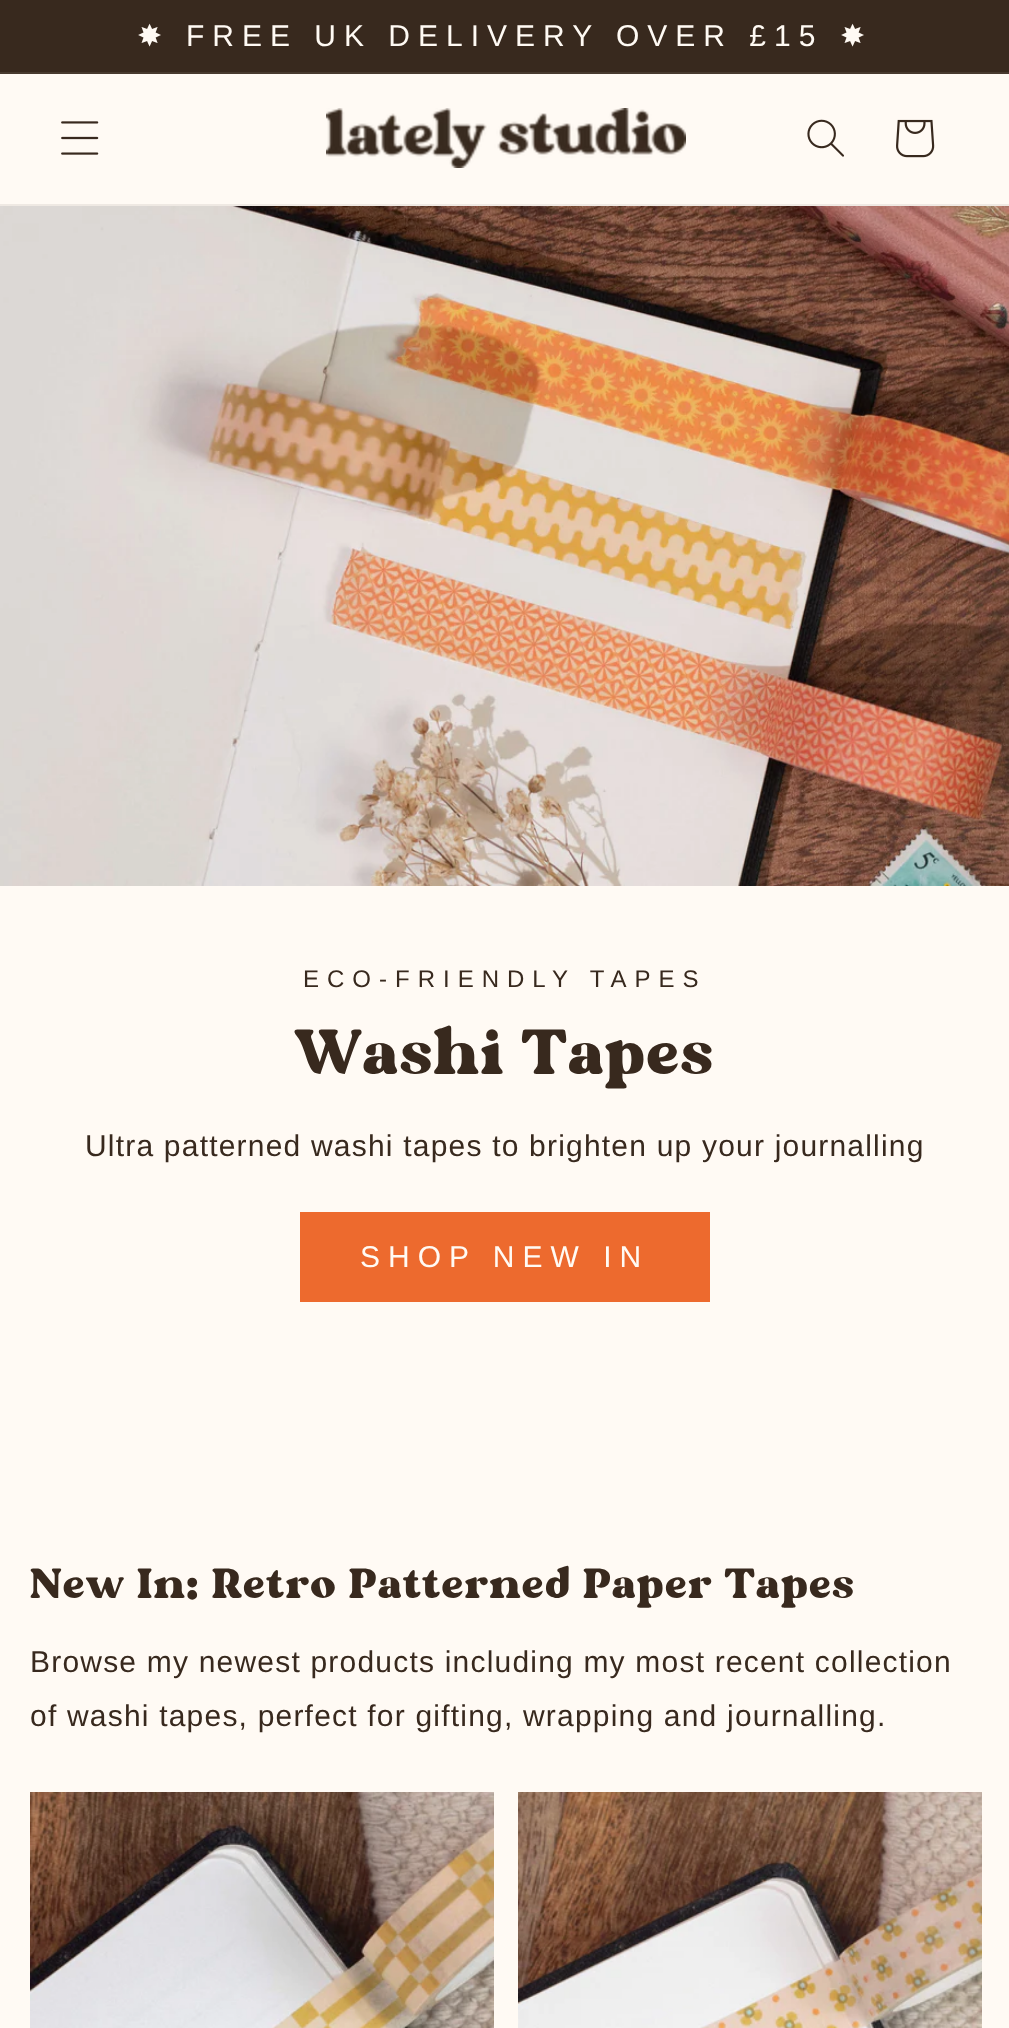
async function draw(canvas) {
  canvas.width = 1009
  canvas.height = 2028
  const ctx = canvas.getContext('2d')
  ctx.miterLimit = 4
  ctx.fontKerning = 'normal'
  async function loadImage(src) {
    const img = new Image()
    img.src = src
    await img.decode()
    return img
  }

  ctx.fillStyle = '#fffaf4'
  ctx.fillRect(0, 0, 1009, 2028)
  ctx.fillStyle = '#38291e'
  ctx.fillRect(0, 0, 1009, 72)
  ctx.fillStyle = '#483a2f'
  ctx.fillRect(0, 72, 1009, 2)
  ctx.letterSpacing = '8px'
  ctx.font = '30px DejaVu Sans'
  ctx.fillStyle = '#fffaf4'
  ctx.fillText('✸', 137, 46)
  ctx.font = '30px Liberation Sans'
  ctx.fillText('FREE UK DELIVERY OVER £15', 186, 46)
  ctx.font = '30px DejaVu Sans'
  ctx.fillText('✸', 840, 46)
  ctx.fillStyle = '#efe9e3'
  ctx.fillRect(0, 204, 1009, 2)
  ctx.drawImage(await loadImage('image0.png'), 61, 121, 38, 34)
  ctx.drawImage(await loadImage('image1.png'), 326, 108, 360, 60)
  ctx.drawImage(await loadImage('image2.png'), 807, 119, 37, 38)
  ctx.drawImage(await loadImage('image3.png'), 896, 119, 39, 39)
  ctx.drawImage(await loadImage('image4.png'), 0, 206, 1009, 680)
  ctx.font = '24px Liberation Sans'
  ctx.fillStyle = '#38291e'
  ctx.fillText('ECO-FRIENDLY TAPES', 303, 987)
  ctx.letterSpacing = '1.2px'
  ctx.font = '60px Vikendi'
  ctx.fillText('Washi Tapes', 295, 1074)
  ctx.font = '30px Liberation Sans'
  ctx.fillText('Ultra patterned washi tapes to brighten up your journalling', 85, 1156)
  ctx.fillStyle = '#ed6a2e'
  ctx.fillRect(300, 1212, 410, 90)
  ctx.letterSpacing = '8px'
  ctx.fillStyle = '#fffaf4'
  ctx.fillText('SHOP NEW IN', 360, 1267)
  ctx.letterSpacing = '1.2px'
  ctx.font = '40px Vikendi'
  ctx.fillStyle = '#38291e'
  ctx.fillText('New In: Retro Patterned Paper Tapes', 30, 1598)
  ctx.font = '30px Liberation Sans'
  ctx.fillText('Browse my newest products including my most recent collection', 30, 1672)
  ctx.fillText('of washi tapes, perfect for gifting, wrapping and journalling.', 30, 1726)
  ctx.drawImage(await loadImage('image5.png'), 30, 1792, 464, 236)
  ctx.drawImage(await loadImage('image6.png'), 518, 1792, 464, 236)
}

draw(document.querySelector('canvas'))
